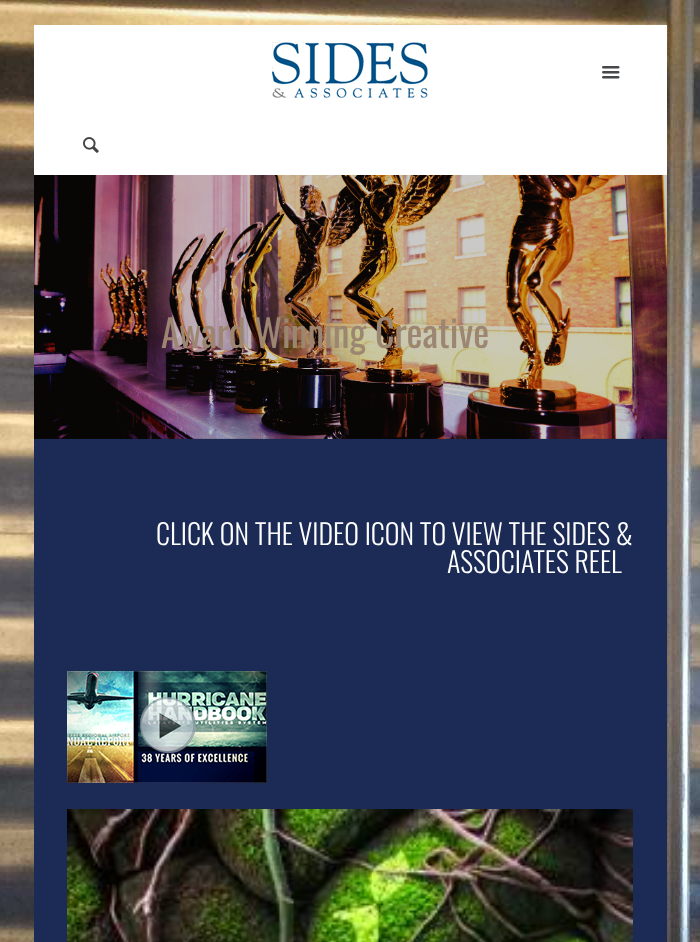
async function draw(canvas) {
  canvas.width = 700
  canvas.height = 942
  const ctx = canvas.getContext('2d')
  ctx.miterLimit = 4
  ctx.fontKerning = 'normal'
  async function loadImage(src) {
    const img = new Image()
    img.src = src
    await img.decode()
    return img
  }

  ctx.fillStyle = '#fff'
  ctx.fillRect(0, 0, 700, 942)
  ctx.drawImage(await loadImage('image0.png'), 0, 0, 700, 942)
  ctx.fillStyle = '#0000000f'
  ctx.filter = 'blur(7.5px)'
  ctx.beginPath()
  ctx.rect(34, 25, 633, 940)
  ctx.fill()
  ctx.filter = 'none'
  ctx.fillStyle = '#fff'
  ctx.fillRect(34, 25, 633, 150)
  ctx.drawImage(await loadImage('image1.png'), 272, 42, 156, 56)
  ctx.drawImage(await loadImage('image2.png'), 602, 66, 18, 13)
  ctx.drawImage(await loadImage('image3.png'), 83, 137, 16, 16)
  ctx.fillStyle = '#211b15'
  ctx.fillRect(34, 175, 633, 264)
  ctx.drawImage(await loadImage('image4.png'), 34, 175, 633, 264)
  ctx.font = '38px Oswald'
  ctx.fillStyle = '#9c8671'
  ctx.fillText('Award Winning Creative', 161, 348)
  ctx.fillStyle = '#1b2b55'
  ctx.fillRect(34, 439, 633, 503)
  ctx.font = '300 28px Oswald'
  ctx.fillStyle = '#fff'
  ctx.fillText('CLICK ON THE VIDEO ICON TO VIEW THE SIDES &', 156, 545)
  ctx.fillText('ASSOCIATES REEL', 447, 573)
  ctx.drawImage(await loadImage('image5.png'), 67, 671, 200, 112)
  ctx.drawImage(await loadImage('image6.png'), 67, 809, 566, 133)
}

draw(document.querySelector('canvas'))
